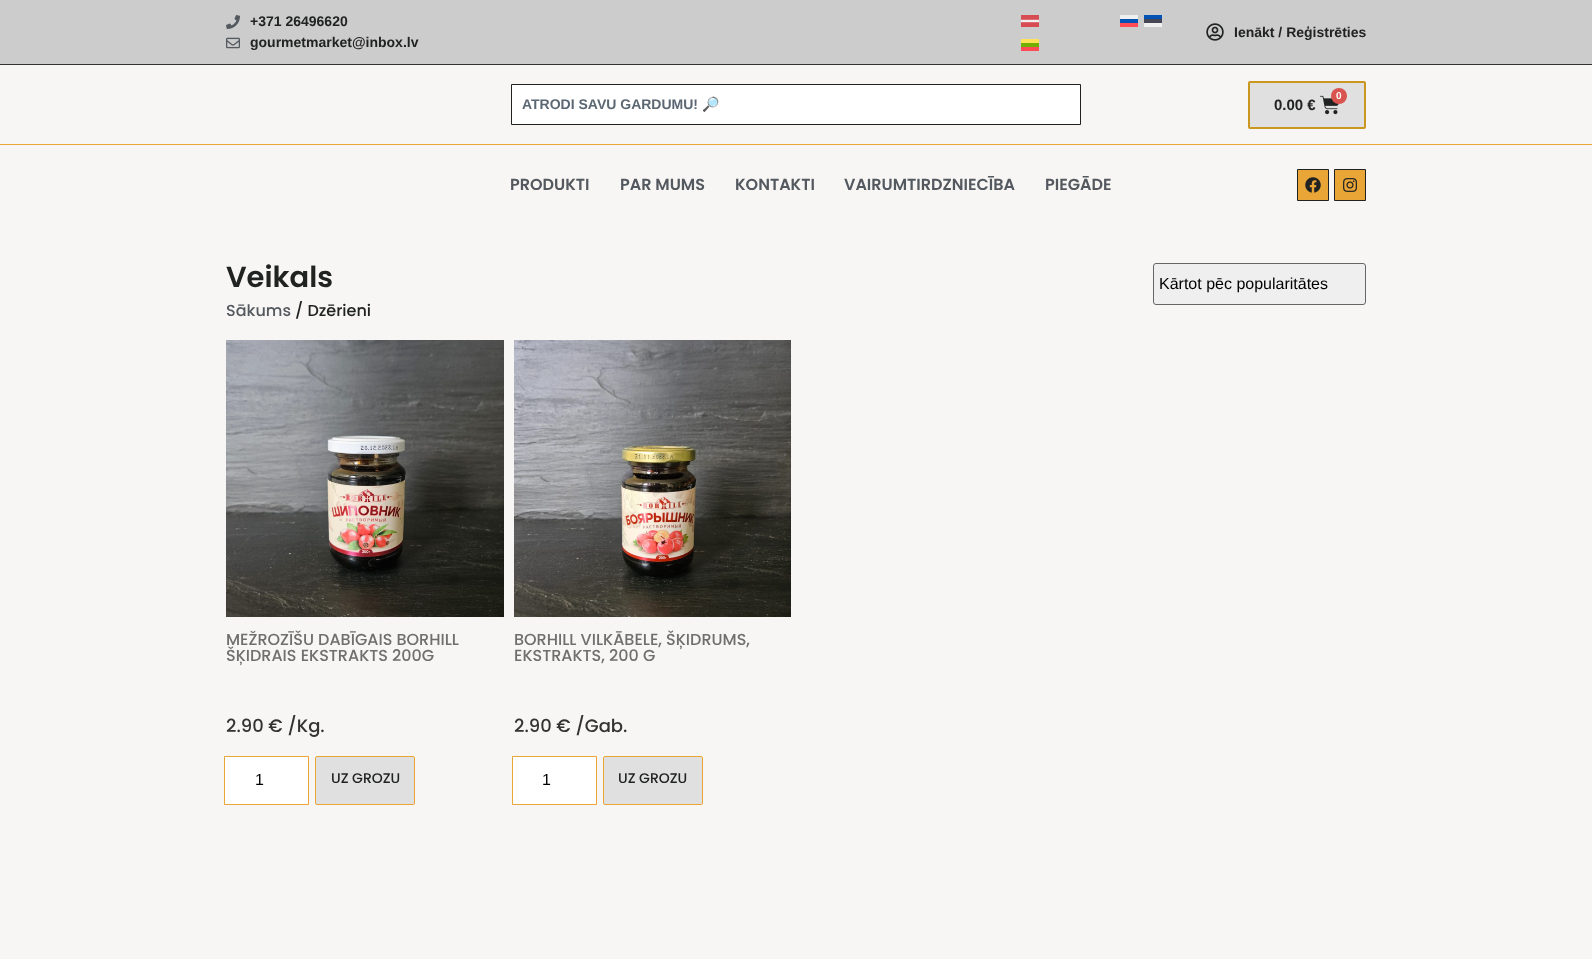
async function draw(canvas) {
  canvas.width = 1592
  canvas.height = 959
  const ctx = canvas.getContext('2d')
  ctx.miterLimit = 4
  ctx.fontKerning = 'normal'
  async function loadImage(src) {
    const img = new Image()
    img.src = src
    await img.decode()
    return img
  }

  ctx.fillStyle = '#f7f6f4'
  ctx.fillRect(0, 0, 1592, 959)
  ctx.fillStyle = '#ccc'
  ctx.fillRect(0, 0, 1592, 64)
  ctx.fillStyle = '#333'
  ctx.fillRect(0, 64, 1592, 1)
  ctx.drawImage(await loadImage('image0.png'), 226, 15, 14, 14)
  ctx.font = 'bold 14px Liberation Sans'
  ctx.fillStyle = '#212322'
  ctx.fillText('+371 26496620', 250, 26)
  ctx.drawImage(await loadImage('image1.png'), 226, 37, 14, 12)
  ctx.fillText('gourmetmarket@inbox.lv', 250, 47)
  ctx.drawImage(await loadImage('image2.png'), 1021, 15, 18, 12)
  ctx.fillStyle = '#f0f0f0'
  ctx.fillRect(1120, 15, 18, 4)
  ctx.fillStyle = '#0052b4'
  ctx.fillRect(1120, 19, 18, 4)
  ctx.fillStyle = '#ff4b55'
  ctx.fillRect(1120, 23, 18, 4)
  ctx.fillStyle = '#0052b4'
  ctx.fillRect(1144, 15, 18, 4)
  ctx.fillStyle = '#464655'
  ctx.fillRect(1144, 19, 18, 4)
  ctx.fillStyle = '#f0f0f0'
  ctx.fillRect(1144, 23, 18, 4)
  ctx.fillStyle = '#ffe15a'
  ctx.fillRect(1021, 39, 18, 4)
  ctx.fillStyle = '#73af00'
  ctx.fillRect(1021, 43, 18, 4)
  ctx.fillStyle = '#ff4b55'
  ctx.fillRect(1021, 47, 18, 4)
  ctx.drawImage(await loadImage('image3.png'), 1206, 23, 18, 18)
  ctx.fillStyle = '#212322'
  ctx.fillText('Ienākt / Reģistrēties', 1234, 37)
  ctx.fillStyle = '#e9a636'
  ctx.fillRect(0, 144, 1592, 1)
  ctx.fillStyle = '#fff'
  ctx.beginPath()
  ctx.rect(511.5, 84.5, 569, 40)
  ctx.fill()
  ctx.strokeStyle = '#212322'
  ctx.stroke()
  ctx.fillStyle = '#5b6772'
  ctx.fillText('ATRODI SAVU GARDUMU!', 522, 109)
  ctx.font = 'bold 14px Noto Color Emoji'
  ctx.fillText('🔎', 702, 109)
  ctx.fillStyle = '#e0e0e0'
  ctx.beginPath()
  ctx.roundRect(1249, 82, 116, 46, 1)
  ctx.fill()
  ctx.strokeStyle = '#ca9720'
  ctx.lineWidth = 2
  ctx.stroke()
  ctx.drawImage(await loadImage('image4.png'), 1320, 95, 19, 20)
  ctx.fillStyle = '#d9534f'
  ctx.beginPath()
  ctx.arc(1339, 96, 8, 0, 2 * Math.PI)
  ctx.fill()
  ctx.font = 'bold 10px Liberation Sans'
  ctx.fillStyle = '#fff'
  ctx.fillText('0', 1336, 99)
  ctx.font = 'bold 15px Liberation Sans'
  ctx.fillStyle = '#212322'
  ctx.fillText('0.00 €', 1274, 110)
  ctx.font = '600 16px Poppins'
  ctx.fillStyle = '#54595f'
  ctx.fillText('PRODUKTI', 510, 190)
  ctx.fillText('PAR MUMS', 620, 190)
  ctx.fillText('KONTAKTI', 735, 190)
  ctx.fillText('VAIRUMTIRDZNIECĪBA', 844, 190)
  ctx.fillText('PIEGĀDE', 1045, 190)
  ctx.fillStyle = '#e9a636'
  ctx.beginPath()
  ctx.rect(1297.5, 169.5, 31, 31)
  ctx.fill()
  ctx.strokeStyle = '#212322'
  ctx.lineWidth = 1
  ctx.stroke()
  ctx.drawImage(await loadImage('image5.png'), 1305, 177, 16, 16)
  ctx.beginPath()
  ctx.rect(1334.5, 169.5, 31, 31)
  ctx.fill()
  ctx.stroke()
  ctx.drawImage(await loadImage('image6.png'), 1343, 178, 14, 14)
  ctx.font = '600 29px Poppins'
  ctx.fillStyle = '#212322'
  ctx.fillText('Veikals', 226, 287)
  ctx.font = '500 16px Poppins'
  ctx.fillStyle = '#54595f'
  ctx.fillText('Sākums', 226, 316)
  ctx.fillStyle = '#212322'
  ctx.fillText('/ Dzērieni', 295, 316)
  ctx.fillStyle = '#efefef'
  ctx.beginPath()
  ctx.roundRect(1153.5, 263.5, 212, 41, 2.5)
  ctx.fill()
  ctx.strokeStyle = '#666'
  ctx.stroke()
  ctx.font = '16px Liberation Sans'
  ctx.fillStyle = '#000'
  ctx.fillText('Kārtot pēc popularitātes', 1159, 289)
  ctx.drawImage(await loadImage('image7.png'), 226, 340, 278, 277)
  ctx.font = '500 16px Poppins'
  ctx.fillStyle = '#6f6f6f'
  ctx.fillText('MEŽROZĪŠU DABĪGAIS BORHILL', 226, 645)
  ctx.fillText('ŠĶIDRAIS EKSTRAKTS 200G', 226, 661)
  ctx.font = '500 18px Poppins'
  ctx.fillStyle = '#333'
  ctx.fillText('2.90 € /Kg.', 226, 732)
  ctx.fillStyle = '#fff'
  ctx.beginPath()
  ctx.rect(224.5, 756.5, 84, 48)
  ctx.fill()
  ctx.strokeStyle = '#e9a636'
  ctx.stroke()
  ctx.font = '16px Liberation Sans'
  ctx.fillStyle = '#000'
  ctx.fillText('1', 255, 785)
  ctx.fillStyle = '#e0e0e0'
  ctx.beginPath()
  ctx.roundRect(315.5, 756.5, 99, 48, 1.5)
  ctx.fill()
  ctx.stroke()
  ctx.font = '500 14px Poppins'
  ctx.fillStyle = '#212322'
  ctx.fillText('UZ GROZU', 331, 783)
  ctx.drawImage(await loadImage('image8.png'), 514, 340, 277, 277)
  ctx.font = '500 16px Poppins'
  ctx.fillStyle = '#6f6f6f'
  ctx.fillText('BORHILL VILKĀBELE, ŠĶIDRUMS,', 514, 645)
  ctx.fillText('EKSTRAKTS, 200 G', 514, 661)
  ctx.font = '500 18px Poppins'
  ctx.fillStyle = '#333'
  ctx.fillText('2.90 € /Gab.', 514, 732)
  ctx.fillStyle = '#fff'
  ctx.beginPath()
  ctx.rect(512.5, 756.5, 84, 48)
  ctx.fill()
  ctx.stroke()
  ctx.font = '16px Liberation Sans'
  ctx.fillStyle = '#000'
  ctx.fillText('1', 542, 785)
  ctx.fillStyle = '#e0e0e0'
  ctx.beginPath()
  ctx.roundRect(603.5, 756.5, 99, 48, 1.5)
  ctx.fill()
  ctx.stroke()
  ctx.font = '500 14px Poppins'
  ctx.fillStyle = '#212322'
  ctx.fillText('UZ GROZU', 618, 783)
}

draw(document.querySelector('canvas'))
